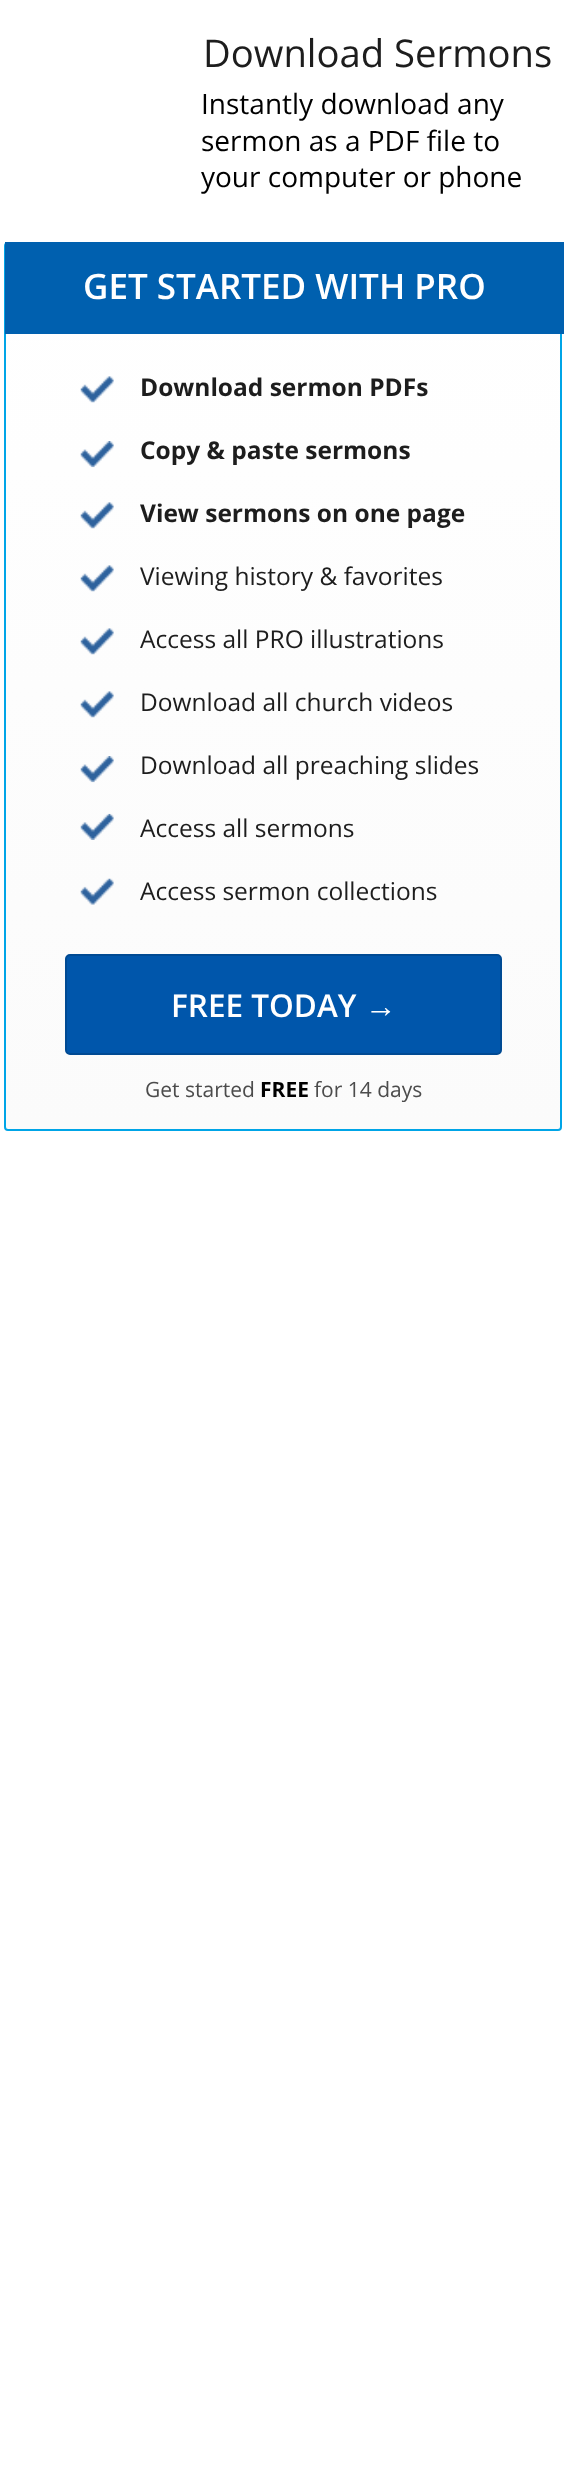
async function draw(canvas) {
  canvas.width = 567
  canvas.height = 2467
  const ctx = canvas.getContext('2d')
  ctx.miterLimit = 4
  ctx.fontKerning = 'normal'
  async function loadImage(src) {
    const img = new Image()
    img.src = src
    await img.decode()
    return img
  }
  let gradient

  ctx.fillStyle = '#fff'
  ctx.fillRect(0, 0, 567, 2467)
  ctx.font = '38.25px Open Sans'
  ctx.fillStyle = '#1d1d1d'
  ctx.fillText('Download Sermons', 203, 67)
  ctx.font = '28px Open Sans'
  ctx.fillStyle = '#000'
  ctx.fillText('Instantly download any', 201, 114)
  ctx.fillText('sermon as a PDF file to', 201, 151)
  ctx.fillText('your computer or phone', 201, 187)
  ctx.save()
  ctx.beginPath()
  ctx.roundRect(4, 242, 558, 889, 4)
  ctx.clip()
  gradient = ctx.createLinearGradient(283, 243, 283, 1129)
  gradient.addColorStop(0, '#fff')
  gradient.addColorStop(1, '#fbfbfb')
  ctx.fillStyle = gradient
  ctx.fillRect(4, 243, 558, 886)
  ctx.restore()
  ctx.beginPath()
  ctx.roundRect(5, 243, 556, 887, 3)
  ctx.strokeStyle = '#00a5e7'
  ctx.lineWidth = 2
  ctx.stroke()
  ctx.fillStyle = '#0060af'
  ctx.fillRect(5, 242, 559, 92)
  ctx.font = '600 35px Open Sans'
  ctx.fillStyle = '#fff'
  ctx.fillText('GET STARTED WITH PRO', 83, 299)
  ctx.drawImage(await loadImage('image0.png'), 80, 376, 34, 27)
  ctx.font = 'bold 24.5px Open Sans'
  ctx.fillStyle = '#1d1d1d'
  ctx.fillText('Download sermon PDFs', 140, 396)
  ctx.fillText('Copy & paste sermons', 140, 459)
  ctx.fillText('View sermons on one page', 140, 522)
  ctx.font = '24.5px Open Sans'
  ctx.fillText('Viewing history & favorites', 140, 585)
  ctx.fillText('Access all PRO illustrations', 140, 648)
  ctx.fillText('Download all church videos', 140, 711)
  ctx.fillText('Download all preaching slides', 140, 774)
  ctx.fillText('Access all sermons', 140, 837)
  ctx.fillText('Access sermon collections', 140, 900)
  ctx.drawImage(await loadImage('image1.png'), 80, 441, 34, 27)
  ctx.drawImage(await loadImage('image0.png'), 80, 502, 34, 27)
  ctx.drawImage(await loadImage('image2.png'), 80, 565, 34, 27)
  ctx.drawImage(await loadImage('image3.png'), 80, 628, 34, 27)
  ctx.drawImage(await loadImage('image3.png'), 80, 691, 34, 27)
  ctx.drawImage(await loadImage('image4.png'), 80, 756, 34, 27)
  ctx.drawImage(await loadImage('image5.png'), 80, 813, 34, 27)
  ctx.drawImage(await loadImage('image6.png'), 80, 878, 34, 27)
  ctx.fillStyle = '#0056ab'
  ctx.beginPath()
  ctx.roundRect(66, 955, 435, 99, 4)
  ctx.fill()
  ctx.strokeStyle = '#004a93'
  ctx.stroke()
  ctx.font = '600 31.5px Open Sans'
  ctx.fillStyle = '#fff'
  ctx.fillText('FREE TODAY', 171, 1017)
  ctx.font = 'bold 31.5px Liberation Serif'
  ctx.fillText('→', 365, 1017)
  ctx.font = '21px Open Sans'
  ctx.fillStyle = '#4c4c4c'
  ctx.fillText('Get started', 145, 1097)
  ctx.font = 'bold 21px Open Sans'
  ctx.fillStyle = '#000'
  ctx.fillText('FREE', 260, 1097)
  ctx.font = '21px Open Sans'
  ctx.fillStyle = '#4c4c4c'
  ctx.fillText('for 14 days', 314, 1097)
}

draw(document.querySelector('canvas'))
